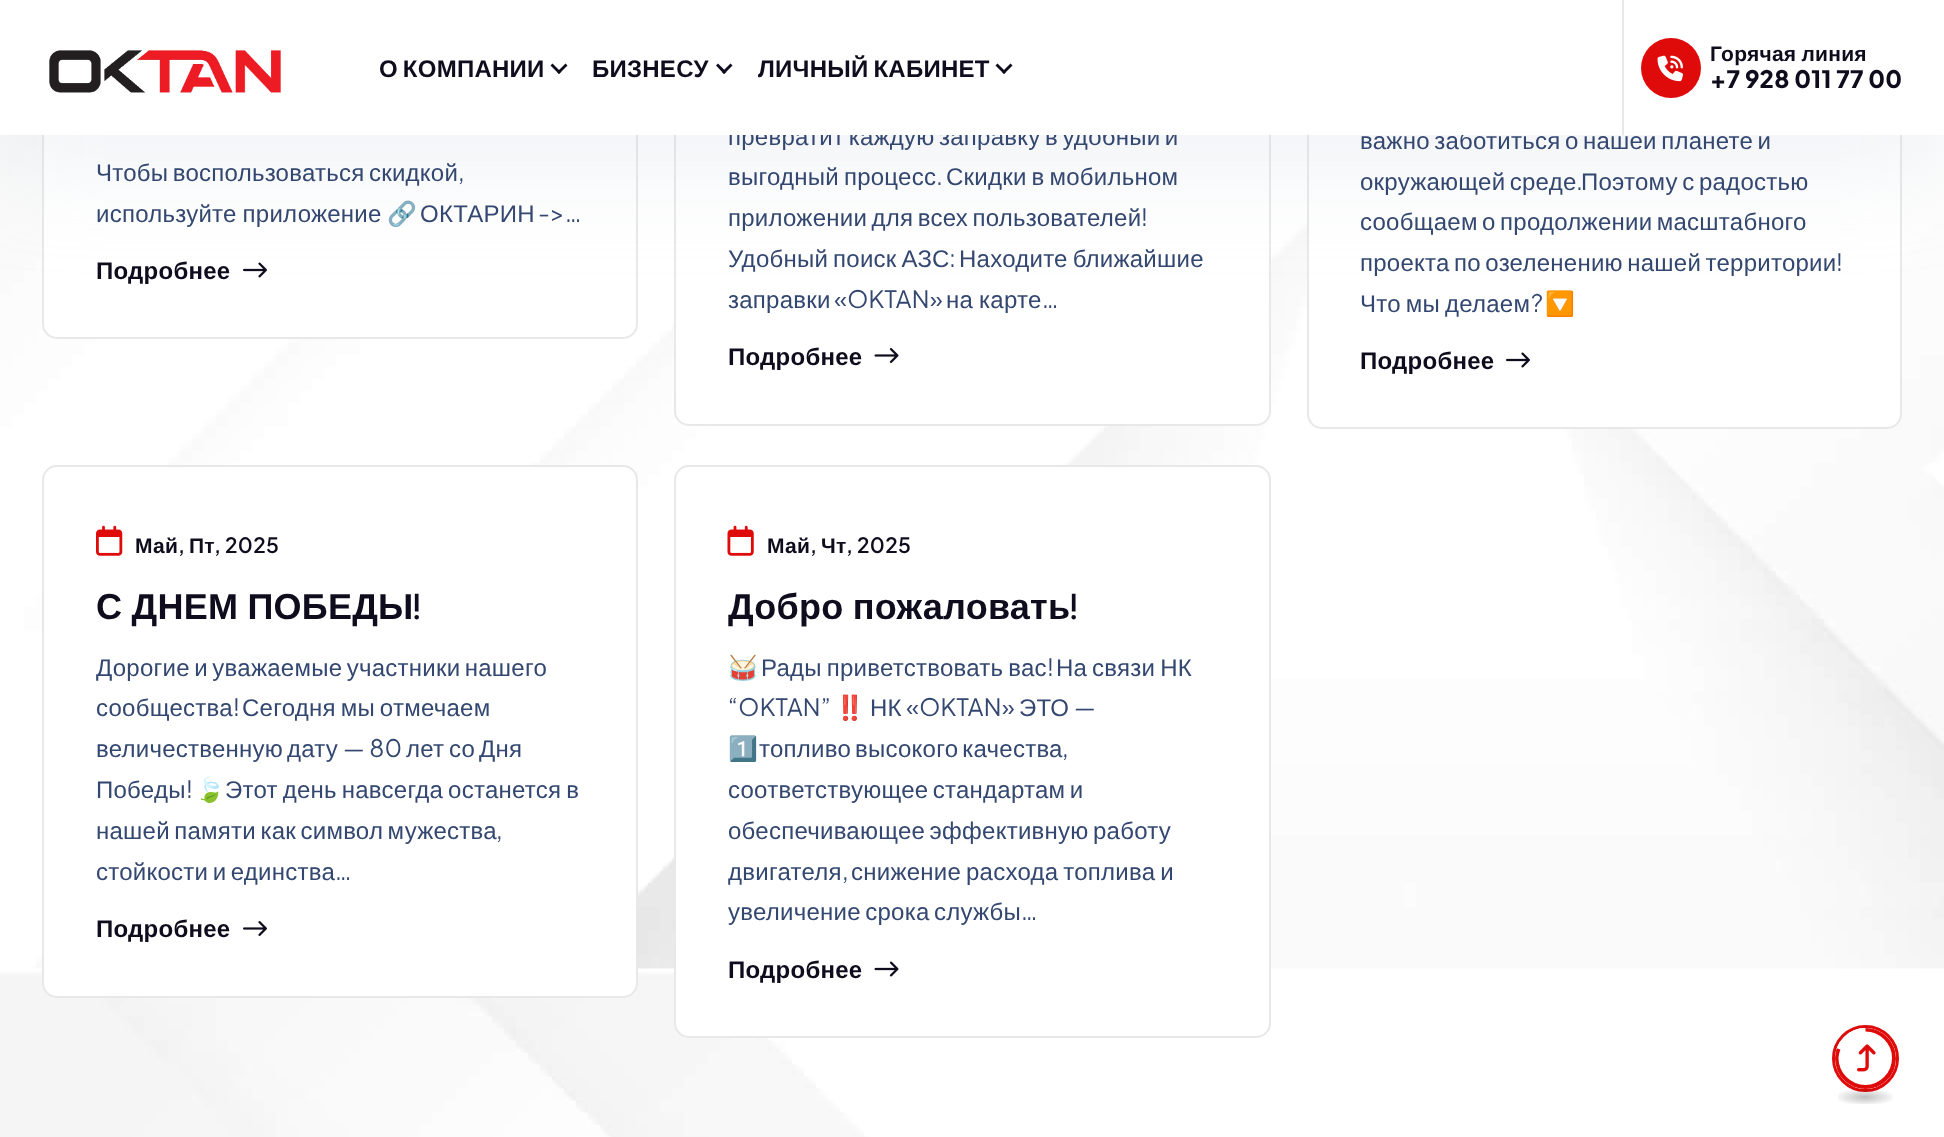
async function draw(canvas) {
  canvas.width = 1944
  canvas.height = 1137
  const ctx = canvas.getContext('2d')
  ctx.miterLimit = 4
  ctx.fontKerning = 'normal'
  async function loadImage(src) {
    const img = new Image()
    img.src = src
    await img.decode()
    return img
  }
  let gradient

  ctx.fillStyle = '#fff'
  ctx.fillRect(0, 0, 1944, 1137)
  ctx.drawImage(await loadImage('image2.png'), 0, 135, 1944, 1002)
  ctx.beginPath()
  ctx.roundRect(43, -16, 594, 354, 14)
  ctx.fill()
  ctx.strokeStyle = '#e8e8e8'
  ctx.lineWidth = 2
  ctx.stroke()
  ctx.drawImage(await loadImage('image3.png'), 243, 262, 24, 16)
  ctx.beginPath()
  ctx.roundRect(675, -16, 595, 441, 14)
  ctx.fill()
  ctx.stroke()
  ctx.beginPath()
  ctx.roundRect(1308, -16, 593, 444, 14)
  ctx.fill()
  ctx.stroke()
  ctx.fillStyle = '#c7ceda40'
  ctx.filter = 'blur(48px)'
  ctx.beginPath()
  ctx.rect(0, 36, 1944, 135)
  ctx.fill()
  ctx.filter = 'none'
  ctx.letterSpacing = '0.25px'
  ctx.wordSpacing = '-2.5px'
  ctx.font = '24px Liberation Sans'
  ctx.fillStyle = '#334770'
  ctx.fillText('превратит каждую заправку в удобный и', 728, 145)
  ctx.fillText('важно заботиться о нашей планете и', 1360, 149)
  ctx.fillStyle = '#fff'
  ctx.fillRect(0, 0, 1944, 135)
  ctx.drawImage(await loadImage('image0.png'), 49, 50, 232, 43)
  ctx.wordSpacing = '-2px'
  ctx.font = 'bold 24px Liberation Sans'
  ctx.fillStyle = '#0f0d1d'
  ctx.fillText('О КОМПАНИИ', 379, 77)
  ctx.beginPath()
  ctx.moveTo(565.5, 63.5)
  ctx.lineTo(567.5, 65.5)
  ctx.lineTo(559, 74)
  ctx.lineTo(557, 72)
  ctx.closePath()
  ctx.fill()
  ctx.beginPath()
  ctx.moveTo(552.5, 63.5)
  ctx.lineTo(561, 72)
  ctx.lineTo(559, 74)
  ctx.lineTo(550.5, 65.5)
  ctx.closePath()
  ctx.fill()
  ctx.wordSpacing = '0px'
  ctx.fillText('БИЗНЕСУ', 592, 77)
  ctx.beginPath()
  ctx.moveTo(730.5, 63.5)
  ctx.lineTo(732.5, 65.5)
  ctx.lineTo(724, 74)
  ctx.lineTo(722, 72)
  ctx.closePath()
  ctx.fill()
  ctx.beginPath()
  ctx.moveTo(718, 63.5)
  ctx.lineTo(726.5, 72)
  ctx.lineTo(724, 74)
  ctx.lineTo(716, 65.5)
  ctx.closePath()
  ctx.fill()
  ctx.wordSpacing = '-2px'
  ctx.fillText('ЛИЧНЫЙ КАБИНЕТ', 758, 77)
  ctx.beginPath()
  ctx.moveTo(1010.5, 63.5)
  ctx.lineTo(1012.5, 65.5)
  ctx.lineTo(1004, 74)
  ctx.lineTo(1002, 72)
  ctx.closePath()
  ctx.fill()
  ctx.beginPath()
  ctx.moveTo(997.5, 63.5)
  ctx.lineTo(1006, 72)
  ctx.lineTo(1004, 74)
  ctx.lineTo(995.5, 65.5)
  ctx.closePath()
  ctx.fill()
  ctx.fillStyle = '#e8e8e8'
  ctx.fillRect(1622, 0, 2, 135)
  ctx.fillStyle = '#df0a0a'
  ctx.beginPath()
  ctx.arc(1671, 68, 30, 0, 2 * Math.PI)
  ctx.fill()
  ctx.drawImage(await loadImage('image1.png'), 1657, 55, 26, 27)
  ctx.wordSpacing = '-1px'
  ctx.font = 'bold 21px Liberation Sans'
  ctx.fillStyle = '#0f0d1d'
  ctx.fillText('Горячая линия', 1710, 61)
  ctx.wordSpacing = '0px'
  ctx.font = '800 24px Plus Jakarta Sans'
  ctx.fillText('+7 928 011 77 00', 1710, 88)
  ctx.wordSpacing = '-2.5px'
  ctx.font = '24px Liberation Sans'
  ctx.fillStyle = '#334770'
  ctx.fillText('Чтобы воспользоваться скидкой', 96, 181)
  ctx.wordSpacing = '0px'
  ctx.font = '24px Plus Jakarta Sans'
  ctx.fillText(',', 458, 181)
  ctx.wordSpacing = '-1px'
  ctx.font = '24px Liberation Sans'
  ctx.fillText('используйте приложение', 96, 222)
  ctx.wordSpacing = '0px'
  ctx.font = '24px Noto Color Emoji'
  ctx.fillText('🔗', 387, 222)
  ctx.font = '24px Liberation Sans'
  ctx.fillText('ОКТАРИН', 420, 222)
  ctx.font = '24px Plus Jakarta Sans'
  ctx.fillText('->…', 538, 222)
  ctx.font = 'bold 24px Liberation Sans'
  ctx.fillStyle = '#0f0d1d'
  ctx.fillText('Подробнее', 96, 279)
  ctx.wordSpacing = '-2px'
  ctx.font = '24px Liberation Sans'
  ctx.fillStyle = '#334770'
  ctx.fillText('выгодный процесс', 728, 185)
  ctx.wordSpacing = '0px'
  ctx.font = '24px Plus Jakarta Sans'
  ctx.fillText('.', 936, 185)
  ctx.wordSpacing = '-2px'
  ctx.font = '24px Liberation Sans'
  ctx.fillText('Скидки в мобильном', 946, 185)
  ctx.wordSpacing = '-2.5px'
  ctx.fillText('приложении для всех пользователей', 728, 226)
  ctx.wordSpacing = '0px'
  ctx.font = '24px Plus Jakarta Sans'
  ctx.fillText('!', 1141, 226)
  ctx.wordSpacing = '-2px'
  ctx.font = '24px Liberation Sans'
  ctx.fillText('Удобный поиск АЗС', 728, 267)
  ctx.wordSpacing = '0px'
  ctx.font = '24px Plus Jakarta Sans'
  ctx.fillText(':', 949, 267)
  ctx.wordSpacing = '-2px'
  ctx.font = '24px Liberation Sans'
  ctx.fillText('Находите ближайшие', 959, 267)
  ctx.wordSpacing = '0px'
  ctx.fillText('заправки', 728, 308)
  ctx.font = '24px Plus Jakarta Sans'
  ctx.fillText('«OKTAN»', 834, 308)
  ctx.wordSpacing = '-1px'
  ctx.font = '24px Liberation Sans'
  ctx.fillText('на карте', 946, 308)
  ctx.wordSpacing = '0px'
  ctx.font = '24px Plus Jakarta Sans'
  ctx.fillText('…', 1042, 308)
  ctx.font = 'bold 24px Liberation Sans'
  ctx.fillStyle = '#0f0d1d'
  ctx.fillText('Подробнее', 728, 365)
  ctx.drawImage(await loadImage('image4.png'), 874, 348, 25, 15)
  ctx.wordSpacing = '-2.5px'
  ctx.font = '24px Liberation Sans'
  ctx.fillStyle = '#334770'
  ctx.fillText('окружающей среде Поэтому с радостью', 1360, 190)
  ctx.wordSpacing = '0px'
  ctx.font = '24px Plus Jakarta Sans'
  ctx.fillText('.', 1576, 190)
  ctx.wordSpacing = '-2.5px'
  ctx.font = '24px Liberation Sans'
  ctx.fillText('сообщаем о продолжении масштабного', 1360, 230)
  ctx.fillText('проекта по озеленению нашей территории', 1360, 271)
  ctx.wordSpacing = '0px'
  ctx.font = '24px Plus Jakarta Sans'
  ctx.fillText('!', 1836, 271)
  ctx.wordSpacing = '-2px'
  ctx.font = '24px Liberation Sans'
  ctx.fillText('Что мы делаем', 1360, 312)
  ctx.wordSpacing = '0px'
  ctx.font = '24px Plus Jakarta Sans'
  ctx.fillText('?', 1531, 312)
  ctx.font = '24px Noto Color Emoji'
  ctx.fillText('🔽', 1545, 312)
  ctx.font = 'bold 24px Liberation Sans'
  ctx.fillStyle = '#0f0d1d'
  ctx.fillText('Подробнее', 1360, 369)
  ctx.drawImage(await loadImage('image3.png'), 1506, 352, 24, 16)
  ctx.fillStyle = '#fff'
  ctx.beginPath()
  ctx.roundRect(42, 465, 596, 533, 15)
  ctx.fill()
  ctx.beginPath()
  ctx.roundRect(43, 466, 594, 531, 14)
  ctx.strokeStyle = '#bdbdbd59'
  ctx.stroke()
  ctx.drawImage(await loadImage('image5.png'), 96, 525, 27, 31)
  ctx.font = 'bold 21px Liberation Sans'
  ctx.fillStyle = '#0f0d1d'
  ctx.fillText('Май', 135, 553)
  ctx.font = '600 21px Plus Jakarta Sans'
  ctx.fillText(',', 178, 553)
  ctx.font = 'bold 21px Liberation Sans'
  ctx.fillText('Пт', 189, 553)
  ctx.font = '600 21px Plus Jakarta Sans'
  ctx.fillText(', 2025', 214, 553)
  ctx.wordSpacing = '-1px'
  ctx.font = 'bold 36px Liberation Sans'
  ctx.fillText('С ДНЕМ ПОБЕДЫ', 96, 619)
  ctx.wordSpacing = '0px'
  ctx.font = 'bold 36px Urbanist'
  ctx.fillText('!', 413, 619)
  ctx.wordSpacing = '-2.5px'
  ctx.font = '24px Liberation Sans'
  ctx.fillStyle = '#334770'
  ctx.fillText('Дорогие и уважаемые участники нашего', 96, 676)
  ctx.wordSpacing = '0px'
  ctx.fillText('сообщества', 96, 716)
  ctx.font = '24px Plus Jakarta Sans'
  ctx.fillText('!', 233, 716)
  ctx.wordSpacing = '-2px'
  ctx.font = '24px Liberation Sans'
  ctx.fillText('Сегодня мы отмечаем', 242, 716)
  ctx.wordSpacing = '0px'
  ctx.fillText('величественную', 96, 757)
  ctx.fillText('дату', 287, 757)
  ctx.font = '24px Plus Jakarta Sans'
  ctx.fillText('— 80', 343, 757)
  ctx.font = '24px Liberation Sans'
  ctx.fillText('лет', 406, 757)
  ctx.fillText('со', 449, 757)
  ctx.fillText('Дня', 479, 757)
  ctx.fillText('Победы', 96, 798)
  ctx.font = '24px Plus Jakarta Sans'
  ctx.fillText('!', 186, 798)
  ctx.font = '24px Noto Color Emoji'
  ctx.fillText('🍃', 195, 798)
  ctx.wordSpacing = '-2px'
  ctx.font = '24px Liberation Sans'
  ctx.fillText('Этот день навсегда останется в', 225, 798)
  ctx.wordSpacing = '-2.5px'
  ctx.fillText('нашей памяти как символ мужества', 96, 839)
  ctx.wordSpacing = '0px'
  ctx.font = '24px Plus Jakarta Sans'
  ctx.fillText(',', 496, 839)
  ctx.wordSpacing = '-2.5px'
  ctx.font = '24px Liberation Sans'
  ctx.fillText('стойкости и единства', 96, 880)
  ctx.wordSpacing = '0px'
  ctx.font = '24px Plus Jakarta Sans'
  ctx.fillText('…', 335, 880)
  ctx.font = 'bold 24px Liberation Sans'
  ctx.fillStyle = '#0f0d1d'
  ctx.fillText('Подробнее', 96, 937)
  ctx.drawImage(await loadImage('image6.png'), 243, 921, 24, 15)
  ctx.fillStyle = '#fff'
  ctx.beginPath()
  ctx.roundRect(674, 465, 597, 573, 15)
  ctx.fill()
  ctx.beginPath()
  ctx.roundRect(675, 466, 595, 571, 14)
  ctx.stroke()
  ctx.drawImage(await loadImage('image7.png'), 727, 525, 27, 31)
  ctx.font = 'bold 21px Liberation Sans'
  ctx.fillStyle = '#0f0d1d'
  ctx.fillText('Май', 767, 553)
  ctx.font = '600 21px Plus Jakarta Sans'
  ctx.fillText(',', 810, 553)
  ctx.font = 'bold 21px Liberation Sans'
  ctx.fillText('Чт', 821, 553)
  ctx.font = '600 21px Plus Jakarta Sans'
  ctx.fillText(', 2025', 846, 553)
  ctx.wordSpacing = '-1px'
  ctx.font = 'bold 36px Liberation Sans'
  ctx.fillText('Добро пожаловать', 728, 619)
  ctx.wordSpacing = '0px'
  ctx.font = 'bold 36px Urbanist'
  ctx.fillText('!', 1070, 619)
  ctx.font = '24px Noto Color Emoji'
  ctx.fillStyle = '#334770'
  ctx.fillText('🥁', 728, 676)
  ctx.wordSpacing = '-2px'
  ctx.font = '24px Liberation Sans'
  ctx.fillText('Рады приветствовать вас', 761, 676)
  ctx.wordSpacing = '0px'
  ctx.font = '24px Plus Jakarta Sans'
  ctx.fillText('!', 1047, 676)
  ctx.wordSpacing = '-2px'
  ctx.font = '24px Liberation Sans'
  ctx.fillText('На связи НК', 1056, 676)
  ctx.wordSpacing = '0px'
  ctx.font = '24px Plus Jakarta Sans'
  ctx.fillText('“OKTAN”', 728, 716)
  ctx.font = '24px Noto Color Emoji'
  ctx.fillText('‼️', 835, 716)
  ctx.font = '24px Liberation Sans'
  ctx.fillText('НК', 870, 716)
  ctx.font = '24px Plus Jakarta Sans'
  ctx.fillText('«OKTAN»', 906, 716)
  ctx.font = '24px Liberation Sans'
  ctx.fillText('ЭТО', 1019, 716)
  ctx.font = '24px Plus Jakarta Sans'
  ctx.fillText('—', 1074, 716)
  ctx.font = '24px Noto Color Emoji'
  ctx.fillText('1️⃣', 728, 757)
  ctx.wordSpacing = '-3px'
  ctx.font = '24px Liberation Sans'
  ctx.fillText('топливо высокого качества', 759, 757)
  ctx.wordSpacing = '0px'
  ctx.font = '24px Plus Jakarta Sans'
  ctx.fillText(',', 1062, 757)
  ctx.wordSpacing = '-2.5px'
  ctx.font = '24px Liberation Sans'
  ctx.fillText('соответствующее стандартам и', 728, 798)
  ctx.fillText('обеспечивающее эффективную работу', 728, 839)
  ctx.wordSpacing = '0px'
  ctx.fillText('двигателя', 728, 880)
  ctx.font = '24px Plus Jakarta Sans'
  ctx.fillText(',', 842, 880)
  ctx.wordSpacing = '-2px'
  ctx.font = '24px Liberation Sans'
  ctx.fillText('снижение расхода топлива и', 851, 880)
  ctx.wordSpacing = '-2.5px'
  ctx.fillText('увеличение срока службы', 728, 920)
  ctx.wordSpacing = '0px'
  ctx.font = '24px Plus Jakarta Sans'
  ctx.fillText('…', 1021, 920)
  ctx.font = 'bold 24px Liberation Sans'
  ctx.fillStyle = '#0f0d1d'
  ctx.fillText('Подробнее', 728, 978)
  ctx.drawImage(await loadImage('image8.png'), 874, 961, 25, 16)
  ctx.beginPath()
  ctx.arc(1865.5, 1058.5, 32, 0, 2 * Math.PI)
  ctx.strokeStyle = '#df0a0a'
  ctx.lineWidth = 3
  ctx.stroke()
  ctx.fillStyle = '#fff'
  ctx.beginPath()
  ctx.arc(1865.5, 1058.5, 30.5, 0, 2 * Math.PI)
  ctx.fill()
  ctx.save()
  ctx.beginPath()
  ctx.roundRect(1835, 1028, 61, 61, 30.5)
  ctx.clip()
  ctx.beginPath()
  ctx.moveTo(1865.5, 1028.5)
  ctx.bezierCurveTo(1881.5, 1028.5, 1895, 1042, 1895, 1058)
  ctx.bezierCurveTo(1895, 1074.5, 1881.5, 1088, 1865.5, 1088)
  ctx.bezierCurveTo(1849, 1088, 1835.5, 1074.5, 1835.5, 1058)
  ctx.bezierCurveTo(1835.5, 1055, 1836.5, 1051.5, 1837.5, 1048.5)
  ctx.lineWidth = 6
  ctx.stroke()
  ctx.restore()
  ctx.drawImage(await loadImage('image9.png'), 1857, 1044, 19, 28)
  gradient = ctx.createRadialGradient(1865, 3889.36, 0, 1865, 3889.36, 39)
  gradient.addColorStop(0, '#00000040')
  gradient.addColorStop(0.8, '#00000000')
  ctx.fillStyle = gradient
  ctx.beginPath()
  ctx.rect(1838, 1089, 55, 15)
  ctx.save()
  ctx.clip()
  ctx.scale(1, 11 / 39)
  ctx.fillRect(0, 0, 1944, 4032)
  ctx.restore()
}

draw(document.querySelector('canvas'))
